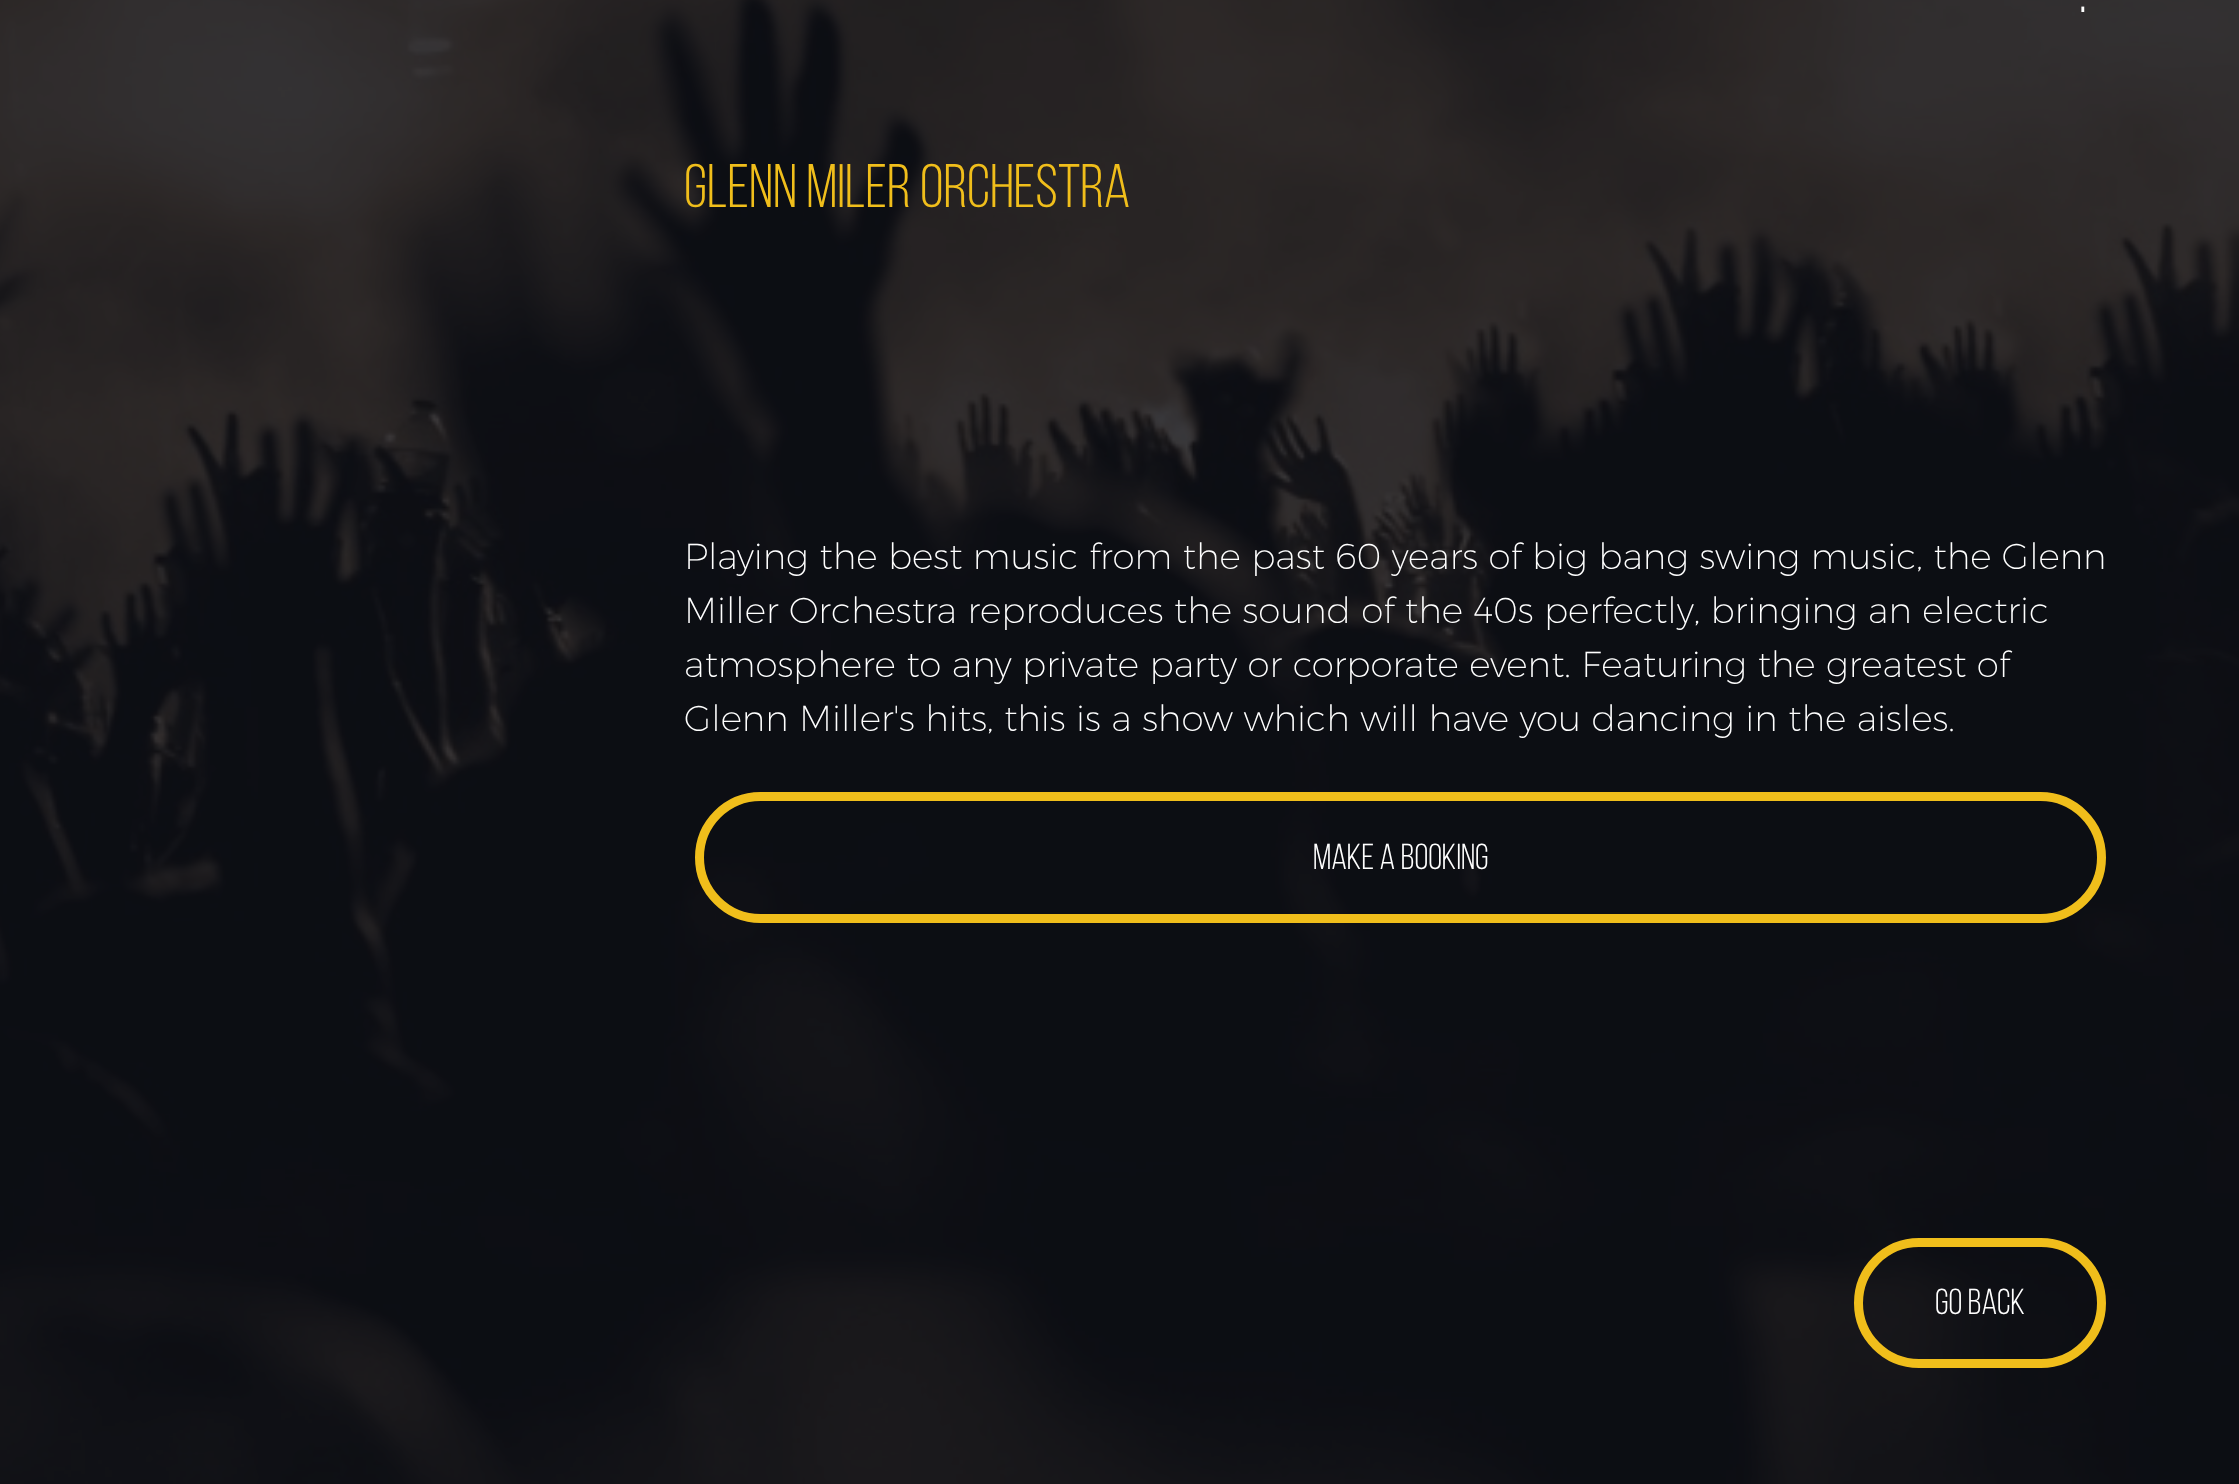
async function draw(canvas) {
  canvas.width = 2239
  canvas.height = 1484
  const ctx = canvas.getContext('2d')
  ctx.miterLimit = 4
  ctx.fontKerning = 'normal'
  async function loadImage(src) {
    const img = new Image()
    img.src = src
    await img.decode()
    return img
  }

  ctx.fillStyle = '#fff'
  ctx.fillRect(0, 0, 2239, 1484)
  ctx.drawImage(await loadImage('image0.png'), 0, 0, 2239, 1484)
  ctx.font = '61px Bebas Neue'
  ctx.fillText('.', 2079, 12)
  ctx.font = '61.25px Bebas Neue'
  ctx.fillStyle = '#f0be1b'
  ctx.fillText('Glenn Miler Orchestra', 684, 207)
  ctx.font = '200 36px Montserrat'
  ctx.fillStyle = '#fff'
  ctx.fillText('Playing the best music from the past 60 years of big bang swing music, the Glenn', 684, 569)
  ctx.fillText('Miller Orchestra reproduces the sound of the 40s perfectly, bringing an electric', 684, 623)
  ctx.fillText('atmosphere to any private party or corporate event. Featuring the greatest of', 684, 677)
  ctx.fillText('Glenn Miller\'s hits, this is a show which will have you dancing in the aisles.', 684, 731)
  ctx.beginPath()
  ctx.roundRect(699.5, 796.5, 1402, 122, 61)
  ctx.strokeStyle = '#f0be1b'
  ctx.lineWidth = 9
  ctx.stroke()
  ctx.font = '36px Bebas Neue'
  ctx.fillText('MAKE A BOOKING', 1313, 869)
  ctx.beginPath()
  ctx.roundRect(1858.5, 1242.5, 243, 121, 60.5)
  ctx.stroke()
  ctx.fillText('GO BACK', 1935, 1314)
}

draw(document.querySelector('canvas'))
